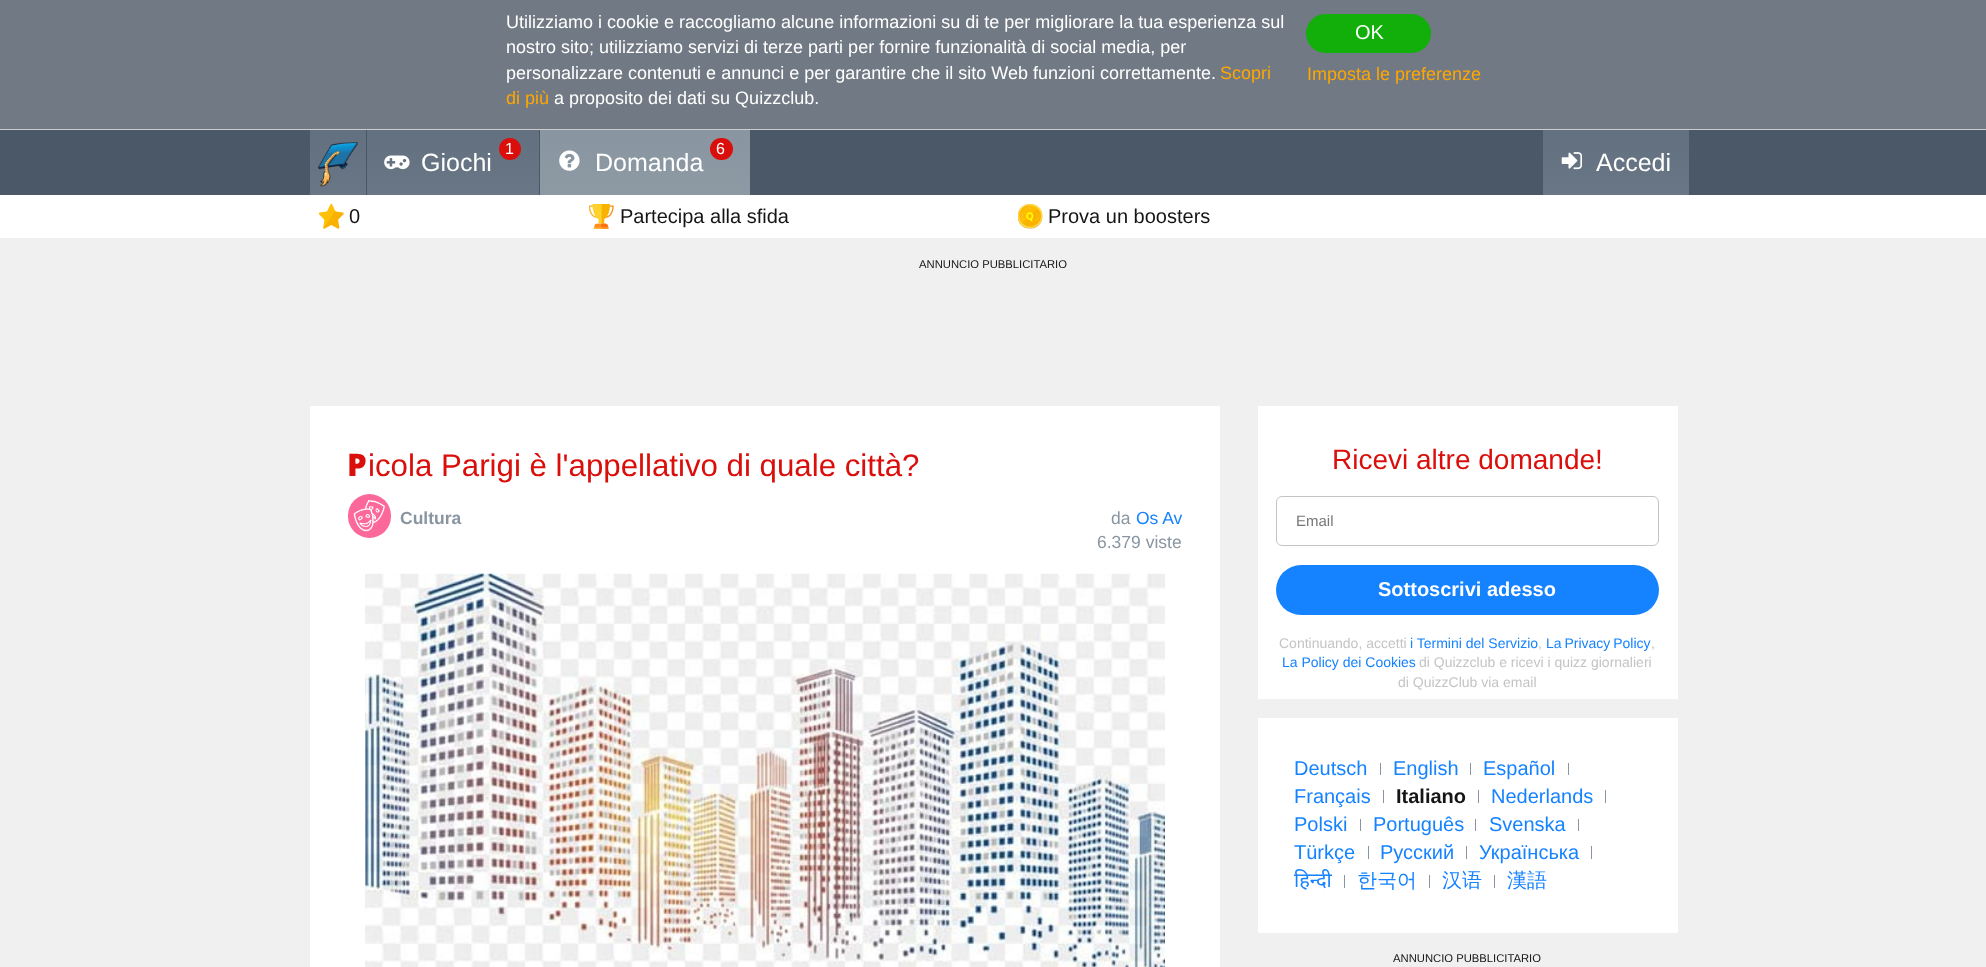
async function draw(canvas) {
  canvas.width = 1986
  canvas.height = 967
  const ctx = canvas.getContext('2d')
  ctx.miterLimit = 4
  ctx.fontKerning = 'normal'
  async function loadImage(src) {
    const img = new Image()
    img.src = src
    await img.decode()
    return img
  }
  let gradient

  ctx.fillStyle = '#f0f0f0'
  ctx.fillRect(0, 0, 1986, 967)
  ctx.fillStyle = '#717a84'
  ctx.fillRect(0, 0, 1986, 129)
  ctx.fillStyle = '#ccc'
  ctx.fillRect(0, 129, 1986, 1)
  ctx.font = '18px Liberation Sans'
  ctx.fillStyle = '#fff'
  ctx.fillText('Utilizziamo i cookie e raccogliamo alcune informazioni su di te per migliorare la tua esperienza sul', 506, 28)
  ctx.fillText('nostro sito; utilizziamo servizi di terze parti per fornire funzionalità di social media, per', 506, 53)
  ctx.fillText('personalizzare contenuti e annunci e per garantire che il sito Web funzioni correttamente.', 506, 79)
  ctx.fillStyle = '#ffa600'
  ctx.fillText('Scopri', 1220, 79)
  ctx.fillText('di più', 506, 104)
  ctx.fillStyle = '#fff'
  ctx.fillText('a proposito dei dati su Quizzclub.', 554, 104)
  ctx.fillStyle = '#12ae09'
  ctx.beginPath()
  ctx.roundRect(1306, 14, 125, 39, 19.5)
  ctx.fill()
  ctx.font = '20px Liberation Sans'
  ctx.fillStyle = '#fff'
  ctx.fillText('OK', 1355, 39)
  ctx.font = '18px Liberation Sans'
  ctx.fillStyle = '#ffa600'
  ctx.fillText('Imposta le preferenze', 1307, 80)
  ctx.fillStyle = '#4a5868'
  ctx.fillRect(0, 130, 1986, 65)
  gradient = ctx.createLinearGradient(338, 130, 338, 195)
  gradient.addColorStop(0, '#62707f')
  gradient.addColorStop(1, '#687685')
  ctx.fillStyle = gradient
  ctx.fillRect(310, 130, 58, 65)
  ctx.fillStyle = '#495666'
  ctx.fillRect(366, 130, 1, 65)
  ctx.drawImage(await loadImage('image0.png'), 318, 142, 40, 45)
  gradient = ctx.createLinearGradient(453, 130, 453, 195)
  gradient.addColorStop(0, '#62707f')
  gradient.addColorStop(1, '#687685')
  ctx.fillStyle = gradient
  ctx.fillRect(368, 130, 171, 65)
  ctx.fillStyle = '#da0f0b'
  ctx.beginPath()
  ctx.arc(510, 149, 11, 0, 2 * Math.PI)
  ctx.fill()
  ctx.font = '16px Liberation Sans'
  ctx.fillStyle = '#fff'
  ctx.fillText('1', 505, 154)
  ctx.drawImage(await loadImage('image1.png'), 384, 155, 26, 15)
  ctx.font = '25px Liberation Sans'
  ctx.fillText('Giochi', 421, 171)
  gradient = ctx.createLinearGradient(645, 130, 645, 195)
  gradient.addColorStop(0, '#8995a0')
  gradient.addColorStop(1, '#8d99a3')
  ctx.fillStyle = gradient
  ctx.fillRect(540, 130, 210, 65)
  ctx.fillStyle = '#da0f0b'
  ctx.beginPath()
  ctx.roundRect(710, 138, 23, 22, 11)
  ctx.fill()
  ctx.font = '16px Liberation Sans'
  ctx.fillStyle = '#fff'
  ctx.fillText('6', 716, 154)
  ctx.drawImage(await loadImage('image2.png'), 559, 150, 21, 21)
  ctx.font = '25px Liberation Sans'
  ctx.fillText('Domanda', 595, 171)
  gradient = ctx.createLinearGradient(1616, 130, 1616, 195)
  gradient.addColorStop(0, '#62707f')
  gradient.addColorStop(1, '#687685')
  ctx.fillStyle = gradient
  ctx.fillRect(1543, 130, 146, 65)
  ctx.drawImage(await loadImage('image3.png'), 1561, 152, 22, 18)
  ctx.fillStyle = '#fff'
  ctx.fillText('Accedi', 1596, 171)
  ctx.fillRect(0, 195, 1986, 43)
  ctx.drawImage(await loadImage('image4.png'), 319, 204, 25, 25)
  ctx.font = '20px Liberation Sans'
  ctx.fillStyle = '#151515'
  ctx.fillText('0', 349, 223)
  ctx.drawImage(await loadImage('image5.png'), 589, 204, 25, 25)
  ctx.fillText('Partecipa alla sfida', 620, 223)
  ctx.drawImage(await loadImage('image6.png'), 1018, 204, 25, 25)
  ctx.fillText('Prova un boosters', 1048, 223)
  ctx.font = '11.25px Liberation Sans'
  ctx.fillText('ANNUNCIO PUBBLICITARIO', 919, 268)
  ctx.fillStyle = '#fff'
  ctx.fillRect(310, 406, 910, 561)
  ctx.font = '900 31.25px Noto Sans'
  ctx.fillStyle = '#da0f0b'
  ctx.fillText('P', 347, 476)
  ctx.font = '31.25px Liberation Sans'
  ctx.fillText('icola Parigi è l\'appellativo di quale città?', 368, 476)
  ctx.fillStyle = '#fd689a'
  ctx.beginPath()
  ctx.roundRect(348, 494, 43, 44, 21.5)
  ctx.fill()
  ctx.drawImage(await loadImage('image7.png'), 353, 500, 32, 32)
  ctx.font = 'bold 17.5px Liberation Sans'
  ctx.fillStyle = '#8995a1'
  ctx.fillText('Cultura', 400, 524)
  ctx.font = '17.5px Liberation Sans'
  ctx.fillText('da', 1111, 524)
  ctx.fillStyle = '#1582ff'
  ctx.fillText('Os Av', 1136, 524)
  ctx.fillStyle = '#8995a1'
  ctx.fillText('6.379 viste', 1097, 548)
  ctx.drawImage(await loadImage('image8.png'), 365, 573, 800, 394)
  ctx.fillStyle = '#fff'
  ctx.fillRect(1258, 406, 420, 293)
  ctx.font = '28px Liberation Sans'
  ctx.fillStyle = '#da0f0b'
  ctx.fillText('Ricevi altre domande!', 1332, 469)
  ctx.beginPath()
  ctx.roundRect(1276.5, 496.5, 382, 49, 5.5)
  ctx.strokeStyle = '#c4c4c4'
  ctx.stroke()
  ctx.font = '15px Liberation Sans'
  ctx.fillStyle = '#777'
  ctx.fillText('Email', 1296, 526)
  ctx.fillStyle = '#1582ff'
  ctx.beginPath()
  ctx.roundRect(1276, 565, 383, 50, 25)
  ctx.fill()
  ctx.font = 'bold 20px Liberation Sans'
  ctx.fillStyle = '#fff'
  ctx.fillText('Sottoscrivi adesso', 1378, 596)
  ctx.font = '14px Liberation Sans'
  ctx.fillStyle = '#c4c4c4'
  ctx.fillText('Continuando, accetti', 1279, 648)
  ctx.fillStyle = '#1582ff'
  ctx.fillText('i Termini del Servizio', 1410, 648)
  ctx.fillStyle = '#c4c4c4'
  ctx.fillText(',', 1538, 648)
  ctx.wordSpacing = '-1px'
  ctx.fillStyle = '#1582ff'
  ctx.fillText('La Privacy Policy', 1546, 648)
  ctx.wordSpacing = '0px'
  ctx.fillStyle = '#c4c4c4'
  ctx.fillText(',', 1651, 648)
  ctx.fillStyle = '#1582ff'
  ctx.fillText('La Policy dei Cookies', 1282, 667)
  ctx.fillStyle = '#c4c4c4'
  ctx.fillText('di Quizzclub e ricevi i quizz giornalieri', 1419, 667)
  ctx.fillText('di QuizzClub via email', 1398, 687)
  ctx.fillStyle = '#fff'
  ctx.fillRect(1258, 718, 420, 215)
  ctx.font = '20px Liberation Sans'
  ctx.fillStyle = '#1582ff'
  ctx.fillText('Deutsch', 1294, 775)
  ctx.fillStyle = '#8995a1'
  ctx.fillRect(1380, 763, 1, 12)
  ctx.fillStyle = '#1582ff'
  ctx.fillText('English', 1393, 775)
  ctx.fillStyle = '#8995a1'
  ctx.fillRect(1470, 763, 1, 12)
  ctx.fillStyle = '#1582ff'
  ctx.fillText('Español', 1483, 775)
  ctx.fillStyle = '#8995a1'
  ctx.fillRect(1568, 763, 1, 12)
  ctx.fillStyle = '#1582ff'
  ctx.fillText('Français', 1294, 803)
  ctx.fillStyle = '#8995a1'
  ctx.fillRect(1383, 790, 1, 13)
  ctx.font = 'bold 20px Liberation Sans'
  ctx.fillStyle = '#151515'
  ctx.fillText('Italiano', 1396, 803)
  ctx.fillStyle = '#8995a1'
  ctx.fillRect(1478, 790, 1, 13)
  ctx.font = '20px Liberation Sans'
  ctx.fillStyle = '#1582ff'
  ctx.fillText('Nederlands', 1491, 803)
  ctx.fillStyle = '#8995a1'
  ctx.fillRect(1605, 790, 1, 13)
  ctx.fillStyle = '#1582ff'
  ctx.fillText('Polski', 1294, 831)
  ctx.fillStyle = '#8995a1'
  ctx.fillRect(1360, 819, 1, 12)
  ctx.fillStyle = '#1582ff'
  ctx.fillText('Português', 1373, 831)
  ctx.fillStyle = '#8995a1'
  ctx.fillRect(1475, 819, 1, 12)
  ctx.fillStyle = '#1582ff'
  ctx.fillText('Svenska', 1489, 831)
  ctx.fillStyle = '#8995a1'
  ctx.fillRect(1578, 819, 1, 12)
  ctx.fillStyle = '#1582ff'
  ctx.fillText('Türkçe', 1294, 859)
  ctx.fillStyle = '#8995a1'
  ctx.fillRect(1368, 846, 1, 13)
  ctx.fillStyle = '#1582ff'
  ctx.fillText('Русский', 1380, 859)
  ctx.fillStyle = '#8995a1'
  ctx.fillRect(1466, 846, 1, 13)
  ctx.fillStyle = '#1582ff'
  ctx.fillText('Українська', 1479, 859)
  ctx.fillStyle = '#8995a1'
  ctx.fillRect(1591, 846, 1, 13)
  ctx.font = '20px Noto Sans'
  ctx.fillStyle = '#1582ff'
  ctx.fillText('हिन्दी', 1294, 887)
  ctx.fillStyle = '#8995a1'
  ctx.fillRect(1344, 875, 1, 13)
  ctx.font = '500 20px WenQuanYi Zen Hei'
  ctx.fillStyle = '#1582ff'
  ctx.fillText('한국어', 1357, 887)
  ctx.fillStyle = '#8995a1'
  ctx.fillRect(1429, 875, 1, 13)
  ctx.fillStyle = '#1582ff'
  ctx.fillText('汉语', 1442, 887)
  ctx.fillStyle = '#8995a1'
  ctx.fillRect(1494, 875, 1, 13)
  ctx.fillStyle = '#1582ff'
  ctx.fillText('漢語', 1507, 887)
  ctx.font = '11.25px Liberation Sans'
  ctx.fillStyle = '#151515'
  ctx.fillText('ANNUNCIO PUBBLICITARIO', 1393, 962)
}

draw(document.querySelector('canvas'))
